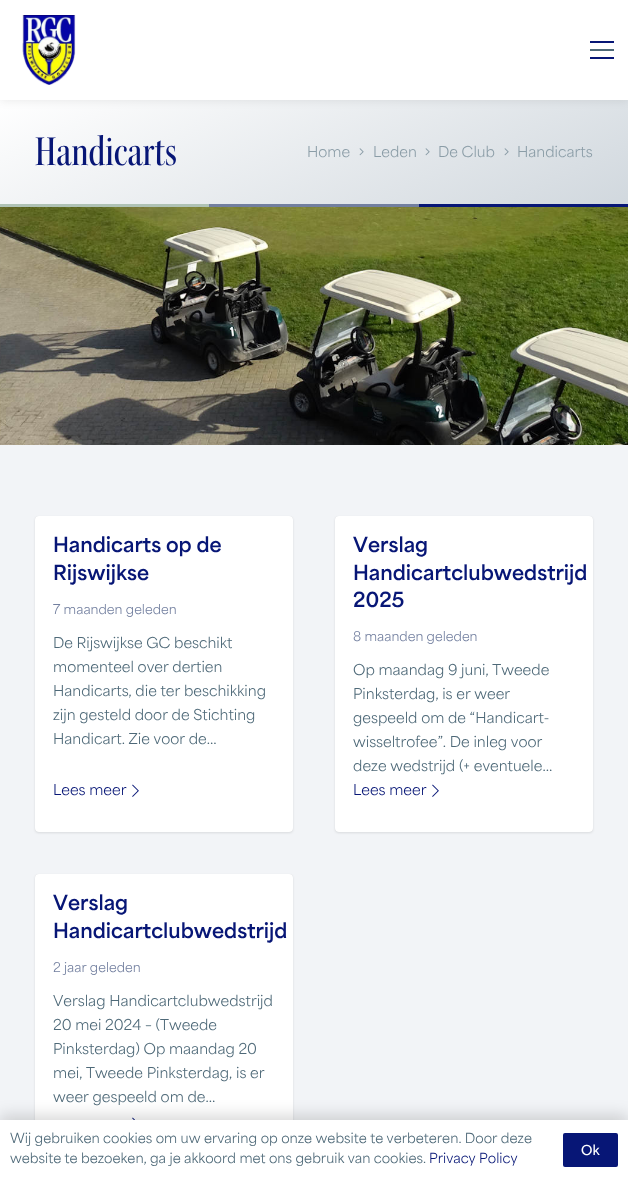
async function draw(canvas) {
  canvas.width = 628
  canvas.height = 1180
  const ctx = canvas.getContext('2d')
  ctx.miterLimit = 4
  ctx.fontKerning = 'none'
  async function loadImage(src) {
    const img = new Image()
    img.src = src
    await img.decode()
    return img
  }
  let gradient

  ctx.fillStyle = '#f2f4f7'
  ctx.fillRect(0, 0, 628, 1180)
  gradient = ctx.createLinearGradient(219, -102, 409, 306)
  gradient.addColorStop(0, '#fff')
  gradient.addColorStop(0.2, '#fff')
  gradient.addColorStop(1, '#d1d8de')
  ctx.fillStyle = gradient
  ctx.fillRect(0, 100, 628, 104)
  ctx.fillStyle = '#00000014'
  ctx.filter = 'blur(4.5px)'
  ctx.beginPath()
  ctx.rect(0, 1, 628, 100)
  ctx.fill()
  ctx.filter = 'none'
  ctx.fillStyle = '#fff'
  ctx.fillRect(0, 0, 628, 100)
  ctx.drawImage(await loadImage('image0.png'), 22, 15, 54, 70)
  ctx.fillStyle = '#4e6978'
  ctx.fillRect(590, 49, 24, 2)
  ctx.fillStyle = '#071676'
  ctx.fillRect(590, 41, 24, 2)
  ctx.fillRect(590, 57, 24, 2)
  ctx.font = '500 44.5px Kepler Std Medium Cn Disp'
  ctx.fillText('Handicarts', 35, 165)
  ctx.font = '14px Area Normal'
  ctx.fillStyle = '#8b9da7'
  ctx.fillText('Home', 307, 157)
  ctx.drawImage(await loadImage('image1.png'), 359, 148, 5, 8)
  ctx.fillText('Leden', 373, 157)
  ctx.drawImage(await loadImage('image2.png'), 425, 148, 5, 8)
  ctx.fillText('De Club', 438, 157)
  ctx.drawImage(await loadImage('image3.png'), 504, 148, 5, 8)
  ctx.fillText('Handicarts', 517, 157)
  ctx.fillStyle = '#071676'
  ctx.fillRect(419, 204, 209, 3)
  ctx.fillStyle = '#afc2b5'
  ctx.fillRect(0, 204, 209, 3)
  ctx.fillStyle = '#727f9f'
  ctx.fillRect(209, 204, 210, 3)
  ctx.drawImage(await loadImage('image4.png'), 0, 207, 628, 238)
  ctx.fillStyle = '#0000001a'
  ctx.filter = 'blur(1px)'
  ctx.beginPath()
  ctx.roundRect(35, 517, 258, 316, 4)
  ctx.fill()
  ctx.filter = 'none'
  ctx.filter = 'blur(0.5px)'
  ctx.beginPath()
  ctx.roundRect(35, 516, 258, 316, 4)
  ctx.fill()
  ctx.filter = 'none'
  ctx.fillStyle = '#fff'
  ctx.beginPath()
  ctx.roundRect(35, 516, 258, 316, 4)
  ctx.fill()
  ctx.font = 'bold 19.6px Area Normal'
  ctx.fillStyle = '#071676'
  ctx.fillText('Handicarts op de', 53, 552)
  ctx.fillText('Rijswijkse', 53, 580)
  ctx.font = '12.5px Area Normal'
  ctx.fillStyle = '#727f9f'
  ctx.fillText('7 maanden geleden', 53, 614)
  ctx.font = '14px Area Normal'
  ctx.fillStyle = '#4e6978'
  ctx.fillText('De Rijswijkse GC beschikt', 53, 648)
  ctx.fillText('momenteel over dertien', 53, 672)
  ctx.fillText('Handicarts, die ter beschikking', 53, 696)
  ctx.fillText('zijn gesteld door de Stichting', 53, 720)
  ctx.fillText('Handicart. Zie voor de…', 53, 744)
  ctx.fillStyle = '#071676'
  ctx.fillText('Lees meer', 53, 795)
  ctx.drawImage(await loadImage('image5.png'), 132, 784, 7, 13)
  ctx.fillStyle = '#0000001a'
  ctx.filter = 'blur(1px)'
  ctx.beginPath()
  ctx.roundRect(335, 517, 258, 316, 4)
  ctx.fill()
  ctx.filter = 'none'
  ctx.filter = 'blur(0.5px)'
  ctx.beginPath()
  ctx.roundRect(335, 516, 258, 316, 4)
  ctx.fill()
  ctx.filter = 'none'
  ctx.fillStyle = '#fff'
  ctx.beginPath()
  ctx.roundRect(335, 516, 258, 316, 4)
  ctx.fill()
  ctx.font = 'bold 19.6px Area Normal'
  ctx.fillStyle = '#071676'
  ctx.fillText('Verslag', 353, 552)
  ctx.fillText('Handicartclubwedstrijd', 353, 580)
  ctx.fillText('2025', 353, 607)
  ctx.font = '12.5px Area Normal'
  ctx.fillStyle = '#727f9f'
  ctx.fillText('8 maanden geleden', 353, 641)
  ctx.font = '14px Area Normal'
  ctx.fillStyle = '#4e6978'
  ctx.fillText('Op maandag 9 juni, Tweede', 353, 675)
  ctx.fillText('Pinksterdag, is er weer', 353, 699)
  ctx.fillText('gespeeld om de “Handicart-', 353, 723)
  ctx.fillText('wisseltrofee”. De inleg voor', 353, 747)
  ctx.fillText('deze wedstrijd (+ eventuele…', 353, 771)
  ctx.fillStyle = '#071676'
  ctx.fillText('Lees meer', 353, 795)
  ctx.drawImage(await loadImage('image5.png'), 432, 784, 7, 13)
  ctx.fillStyle = '#0000001a'
  ctx.filter = 'blur(1px)'
  ctx.beginPath()
  ctx.roundRect(35, 875, 258, 289, 4)
  ctx.fill()
  ctx.filter = 'none'
  ctx.filter = 'blur(0.5px)'
  ctx.beginPath()
  ctx.roundRect(35, 874, 258, 289, 4)
  ctx.fill()
  ctx.filter = 'none'
  ctx.fillStyle = '#fff'
  ctx.beginPath()
  ctx.roundRect(35, 874, 258, 289, 4)
  ctx.fill()
  ctx.font = 'bold 19.6px Area Normal'
  ctx.fillStyle = '#071676'
  ctx.fillText('Verslag', 53, 910)
  ctx.fillText('Handicartclubwedstrijd', 53, 938)
  ctx.font = '12.5px Area Normal'
  ctx.fillStyle = '#727f9f'
  ctx.fillText('2 jaar geleden', 53, 972)
  ctx.font = '14px Area Normal'
  ctx.fillStyle = '#4e6978'
  ctx.fillText('Verslag Handicartclubwedstrijd', 53, 1006)
  ctx.fillText('20 mei 2024 – (Tweede', 53, 1030)
  ctx.fillText('Pinksterdag) Op maandag 20', 53, 1054)
  ctx.fillText('mei, Tweede Pinksterdag,', 53, 1078)
  ctx.fillText('is er', 236, 1078)
  ctx.fillText('weer gespeeld om de…', 53, 1102)
  ctx.drawImage(await loadImage('image6.png'), 132, 1117, 3, 3)
  ctx.fillStyle = '#00000026'
  ctx.filter = 'blur(7.5px)'
  ctx.beginPath()
  ctx.rect(0, 1115, 628, 60)
  ctx.fill()
  ctx.filter = 'none'
  ctx.fillStyle = '#fff'
  ctx.fillRect(0, 1120, 628, 60)
  ctx.font = '13px Area Normal'
  ctx.fillStyle = '#4e6978'
  ctx.fillText('Wij gebruiken cookies om uw ervaring op onze website te verbeteren. Door deze', 10, 1143)
  ctx.fillText('website te bezoeken, ga je akkoord met ons gebruik van cookies.', 10, 1163)
  ctx.fillStyle = '#071676'
  ctx.fillText('Privacy Policy', 429, 1163)
  ctx.beginPath()
  ctx.roundRect(563, 1133, 55, 34, 2)
  ctx.fill()
  ctx.font = '600 13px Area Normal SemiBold'
  ctx.fillStyle = '#fff'
  ctx.fillText('Ok', 581, 1155)
}

draw(document.querySelector('canvas'))
